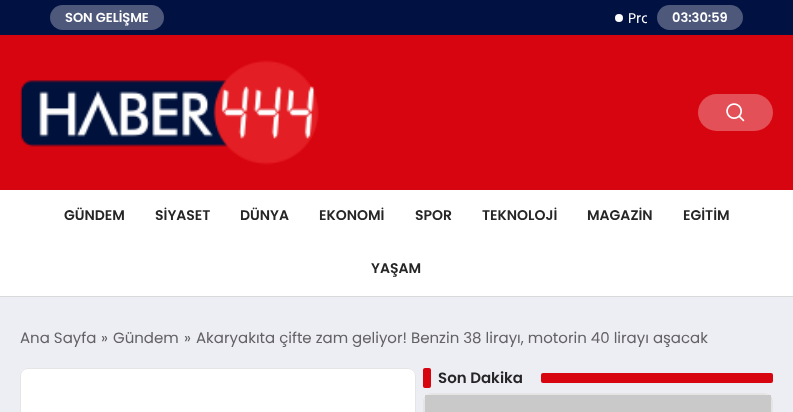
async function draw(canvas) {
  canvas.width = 793
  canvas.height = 412
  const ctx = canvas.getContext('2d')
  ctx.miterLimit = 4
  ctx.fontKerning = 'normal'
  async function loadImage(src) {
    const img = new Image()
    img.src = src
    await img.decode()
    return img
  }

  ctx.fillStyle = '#ededf4'
  ctx.fillRect(0, 0, 793, 412)
  ctx.fillStyle = '#001142'
  ctx.fillRect(0, 0, 793, 35)
  ctx.fillStyle = '#4d587b'
  ctx.beginPath()
  ctx.roundRect(50, 5, 114, 25, 12.5)
  ctx.fill()
  ctx.font = '600 13px Poppins'
  ctx.fillStyle = '#fff'
  ctx.fillText('SON GELİŞME', 65, 22)
  ctx.beginPath()
  ctx.arc(619, 18, 4, 0, 2 * Math.PI)
  ctx.fill()
  ctx.save()
  ctx.beginPath()
  ctx.rect(174, 0, 473, 35)
  ctx.clip()
  ctx.font = '14px Poppins'
  ctx.fillText('Pro', 628, 23)
  ctx.restore()
  ctx.fillStyle = '#4d587b'
  ctx.beginPath()
  ctx.roundRect(657, 5, 86, 25, 12.5)
  ctx.fill()
  ctx.fillStyle = '#fff'
  ctx.fillText('03:30:59', 672, 22)
  ctx.fillStyle = '#d7050f'
  ctx.fillRect(0, 35, 793, 155)
  ctx.drawImage(await loadImage('image0.png'), 20, 60, 299, 105)
  ctx.fillStyle = '#e35057'
  ctx.beginPath()
  ctx.roundRect(698, 94, 75, 37, 18.5)
  ctx.fill()
  ctx.drawImage(await loadImage('image1.png'), 726, 103, 19, 19)
  ctx.fillStyle = '#fff'
  ctx.fillRect(0, 190, 793, 106)
  ctx.fillStyle = '#d9d9d9'
  ctx.fillRect(0, 296, 793, 1)
  ctx.font = '600 14px Poppins'
  ctx.fillStyle = '#262626'
  ctx.fillText('GÜNDEM', 64, 220)
  ctx.fillText('SİYASET', 155, 220)
  ctx.fillText('DÜNYA', 240, 220)
  ctx.fillText('EKONOMİ', 319, 220)
  ctx.fillText('SPOR', 415, 220)
  ctx.fillText('TEKNOLOJİ', 482, 220)
  ctx.fillText('MAGAZİN', 587, 220)
  ctx.fillText('EGİTİM', 683, 220)
  ctx.fillText('YAŞAM', 371, 273)
  ctx.font = '15px Poppins'
  ctx.fillStyle = '#626264'
  ctx.fillText('Ana Sayfa', 20, 343)
  ctx.fillText('»', 101, 343)
  ctx.fillText('Gündem', 113, 343)
  ctx.fillText('»', 184, 343)
  ctx.fillText('Akaryakıta çifte zam geliyor! Benzin 38 lirayı, motorin 40 lirayı aşacak', 196, 343)
  ctx.fillStyle = '#fff'
  ctx.beginPath()
  ctx.roundRect(20, 368, 396, 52, 8)
  ctx.fill()
  ctx.beginPath()
  ctx.roundRect(20.5, 368.5, 395, 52, 7.5)
  ctx.strokeStyle = '#0000001a'
  ctx.stroke()
  ctx.fillStyle = '#d7050f'
  ctx.beginPath()
  ctx.roundRect(423, 368, 8, 20, 2)
  ctx.fill()
  ctx.font = '600 15px Poppins'
  ctx.fillStyle = '#262626'
  ctx.fillText('Son Dakika', 438, 383)
  ctx.fillStyle = '#d7050f'
  ctx.beginPath()
  ctx.roundRect(541, 373, 232, 10, 2)
  ctx.fill()
  ctx.fillStyle = '#fff'
  ctx.beginPath()
  ctx.roundRect(423, 393, 350, 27, 8)
  ctx.fill()
  ctx.beginPath()
  ctx.roundRect(423.5, 393.5, 349, 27, 7.5)
  ctx.stroke()
  ctx.fillStyle = '#0000001a'
  ctx.beginPath()
  ctx.moveTo(424, 401)
  ctx.lineTo(424, 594)
  ctx.lineTo(772, 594)
  ctx.lineTo(772, 401)
  ctx.bezierCurveTo(772, 400, 772, 398, 771, 397)
  ctx.lineTo(771, 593)
  ctx.lineTo(425, 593)
  ctx.lineTo(425, 397)
  ctx.closePath()
  ctx.moveTo(431, 394)
  ctx.lineTo(427, 395)
  ctx.lineTo(769, 395)
  ctx.lineTo(765, 394)
  ctx.closePath()
  ctx.fill('evenodd')
  ctx.fillStyle = '#c9c9c9'
  ctx.fillRect(425, 395, 346, 17)
}

draw(document.querySelector('canvas'))
